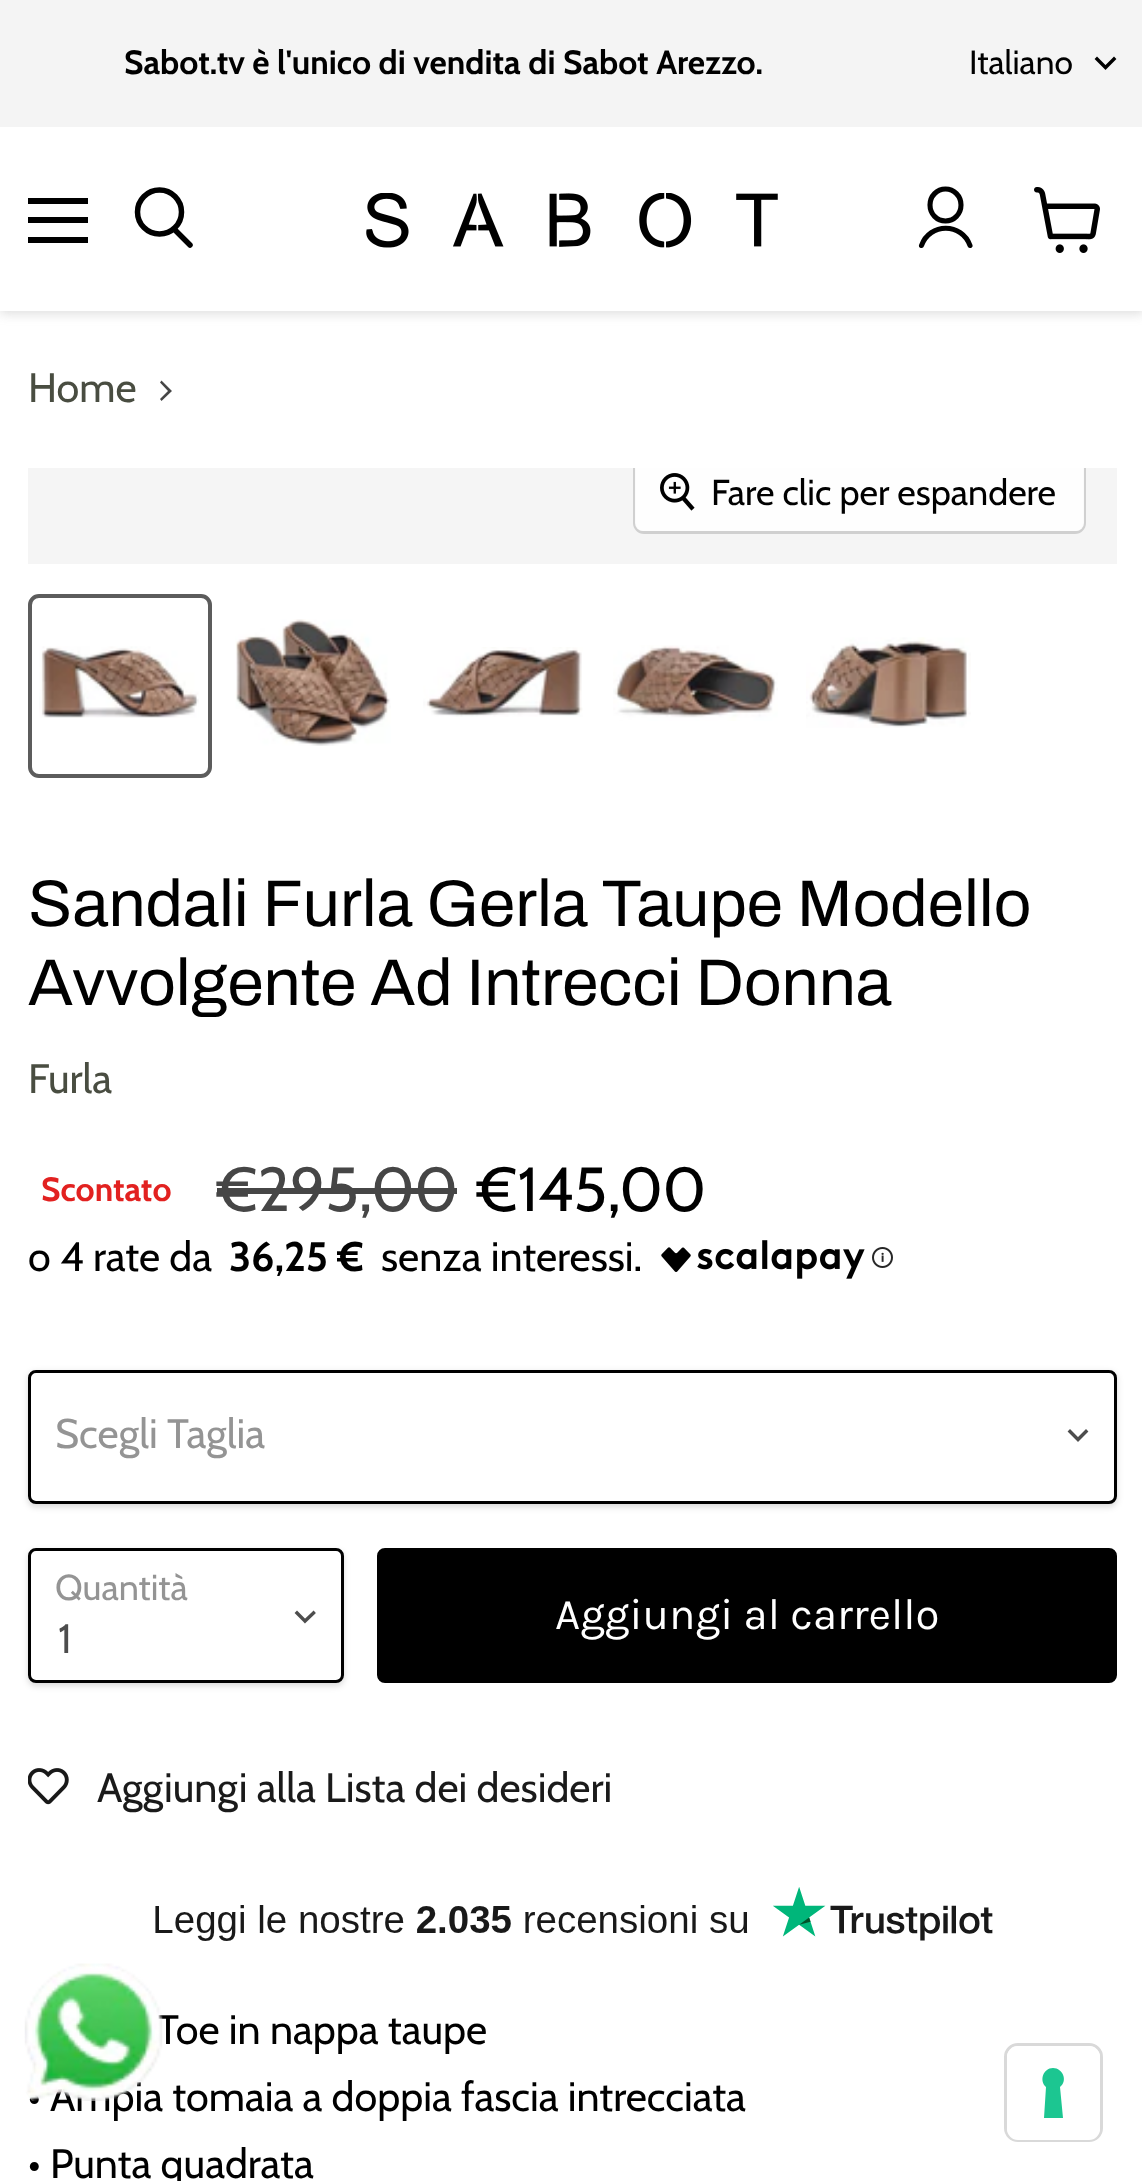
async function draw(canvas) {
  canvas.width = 1142
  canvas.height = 2181
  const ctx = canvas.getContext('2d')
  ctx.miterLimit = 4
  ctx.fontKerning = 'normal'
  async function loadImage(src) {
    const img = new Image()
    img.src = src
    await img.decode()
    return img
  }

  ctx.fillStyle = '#fff'
  ctx.fillRect(0, 0, 1142, 2181)
  ctx.fillStyle = '#80808040'
  ctx.filter = 'blur(5.5px)'
  ctx.beginPath()
  ctx.rect(0, 132, 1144, 182)
  ctx.fill()
  ctx.filter = 'none'
  ctx.fillStyle = '#f4f4f4'
  ctx.fillRect(0, 0, 1142, 127)
  ctx.font = 'bold 33.5px Cabin'
  ctx.fillStyle = '#000'
  ctx.fillText('Sabot.tv è l\'unico di vendita di Sabot Arezzo.', 124, 74)
  ctx.font = '33.5px Cabin'
  ctx.fillText('Italiano', 969, 74)
  ctx.beginPath()
  ctx.moveTo(1105.5, 67.5)
  ctx.lineTo(1114, 59)
  ctx.moveTo(1105.5, 67.5)
  ctx.lineTo(1097, 59)
  ctx.strokeStyle = '#000'
  ctx.lineWidth = 3.4
  ctx.lineCap = 'square'
  ctx.stroke()
  ctx.fillStyle = '#fff'
  ctx.fillRect(0, 127, 1142, 184)
  ctx.fillStyle = '#000'
  ctx.fillRect(28, 198, 60, 6)
  ctx.fillRect(28, 217, 60, 6)
  ctx.fillRect(28, 237, 60, 6)
  ctx.beginPath()
  ctx.moveTo(190, 245)
  ctx.lineTo(174.5, 229.5)
  ctx.lineWidth = 5.5
  ctx.lineCap = 'round'
  ctx.stroke()
  ctx.beginPath()
  ctx.arc(159.5, 212, 22, 0, 2 * Math.PI)
  ctx.stroke()
  ctx.drawImage(await loadImage('image0.png'), 366, 193, 412, 55)
  ctx.beginPath()
  ctx.moveTo(945.5, 221)
  ctx.bezierCurveTo(954, 221, 961, 214, 961, 205)
  ctx.bezierCurveTo(961, 196, 954, 189, 945.5, 189)
  ctx.bezierCurveTo(937, 189, 930, 196, 930, 205)
  ctx.bezierCurveTo(930, 214, 937, 221, 945.5, 221)
  ctx.closePath()
  ctx.moveTo(970, 245.5)
  ctx.bezierCurveTo(962, 222.5, 929.5, 222.5, 921.5, 245.5)
  ctx.lineWidth = 5.1
  ctx.lineJoin = 'round'
  ctx.stroke()
  ctx.drawImage(await loadImage('image1.png'), 1034, 187, 66, 66)
  ctx.font = '41.25px Cabin'
  ctx.fillStyle = '#494d41'
  ctx.fillText('Home', 28, 402)
  ctx.fillStyle = '#464646'
  ctx.beginPath()
  ctx.moveTo(160, 399)
  ctx.lineTo(161.5, 401)
  ctx.lineTo(172, 391)
  ctx.lineTo(161.5, 380.5)
  ctx.lineTo(160, 382.5)
  ctx.lineTo(168, 391)
  ctx.closePath()
  ctx.fill('evenodd')
  ctx.fillStyle = '#f5f5f5'
  ctx.fillRect(28, 468, 1089, 96)
  ctx.save()
  ctx.beginPath()
  ctx.rect(28, 468, 1089, 96)
  ctx.clip()
  ctx.beginPath()
  ctx.roundRect(634.5, 455.5, 450, 77, 9.5)
  ctx.strokeStyle = '#d0d0d0'
  ctx.lineWidth = 3
  ctx.lineJoin = 'miter'
  ctx.stroke()
  ctx.restore()
  ctx.fillStyle = '#ffffffe6'
  ctx.beginPath()
  ctx.roundRect(635, 468, 449, 63, [0, 0, 8, 8])
  ctx.fill()
  ctx.drawImage(await loadImage('image2.png'), 660, 473, 35, 38)
  ctx.font = '36px Cabin'
  ctx.fillStyle = '#000'
  ctx.fillText('Fare clic per espandere', 711, 505)
  ctx.beginPath()
  ctx.roundRect(30, 596, 180, 180, 9)
  ctx.strokeStyle = '#5c5c5c'
  ctx.lineWidth = 4
  ctx.lineJoin = 'miter'
  ctx.stroke()
  ctx.drawImage(await loadImage('image3.png'), 39, 646, 160, 72)
  ctx.drawImage(await loadImage('image4.png'), 235, 619, 156, 127)
  ctx.drawImage(await loadImage('image5.png'), 423, 647, 160, 70)
  ctx.drawImage(await loadImage('image6.png'), 613, 645, 165, 76)
  ctx.drawImage(await loadImage('image7.png'), 806, 637, 165, 91)
  ctx.font = '66px Archivo'
  ctx.fillText('Sandali Furla Gerla Taupe Modello', 28, 926)
  ctx.fillText('Avvolgente Ad Intrecci Donna', 28, 1005)
  ctx.font = '41.25px Cabin'
  ctx.fillStyle = '#494d41'
  ctx.fillText('Furla', 28, 1093)
  ctx.font = 'bold 33.5px Cabin'
  ctx.fillStyle = '#e22120'
  ctx.fillText('Scontato', 41, 1201)
  ctx.font = '62px Cabin'
  ctx.fillStyle = '#464646'
  ctx.fillText('€295,00', 217, 1211)
  ctx.fillRect(217, 1188, 240, 6)
  ctx.fillStyle = '#000'
  ctx.fillText('€145,00', 477, 1211)
  ctx.font = '41.25px Cabin'
  ctx.fillText('o 4 rate da', 28, 1271)
  ctx.font = 'bold 41.25px Cabin'
  ctx.fillText('36,25 €', 229, 1271)
  ctx.font = '41.25px Cabin'
  ctx.fillText('senza interessi.', 381, 1271)
  ctx.drawImage(await loadImage('image8.png'), 661, 1240, 204, 39)
  ctx.drawImage(await loadImage('image9.png'), 872, 1247, 21, 21)
  ctx.fillStyle = '#00000026'
  ctx.filter = 'blur(3px)'
  ctx.beginPath()
  ctx.roundRect(28, 1372, 1089, 135, 8)
  ctx.fill()
  ctx.filter = 'none'
  ctx.fillStyle = '#fff'
  ctx.beginPath()
  ctx.roundRect(29.5, 1371.5, 1086, 131, 6.5)
  ctx.fill()
  ctx.strokeStyle = '#000'
  ctx.lineWidth = 3
  ctx.stroke()
  ctx.beginPath()
  ctx.moveTo(1078, 1439.5)
  ctx.lineTo(1086, 1431.5)
  ctx.moveTo(1078, 1439.5)
  ctx.lineTo(1070, 1431.5)
  ctx.strokeStyle = '#4d4d4d'
  ctx.lineWidth = 3.4
  ctx.lineCap = 'square'
  ctx.stroke()
  ctx.fillStyle = '#949494'
  ctx.fillText('Scegli Taglia', 55, 1448)
  ctx.fillStyle = '#00000026'
  ctx.filter = 'blur(3px)'
  ctx.beginPath()
  ctx.roundRect(28, 1551, 316, 135, 8)
  ctx.fill()
  ctx.filter = 'none'
  ctx.fillStyle = '#fff'
  ctx.beginPath()
  ctx.roundRect(29.5, 1549.5, 313, 132, 6.5)
  ctx.fill()
  ctx.strokeStyle = '#000'
  ctx.lineWidth = 3
  ctx.stroke()
  ctx.font = '36px Cabin'
  ctx.fillStyle = '#949494'
  ctx.fillText('Quantità', 55, 1600)
  ctx.beginPath()
  ctx.moveTo(305, 1621)
  ctx.lineTo(313.5, 1613)
  ctx.moveTo(305, 1621)
  ctx.lineTo(297, 1613)
  ctx.strokeStyle = '#4d4d4d'
  ctx.lineWidth = 3.4
  ctx.stroke()
  ctx.font = '41.25px Cabin'
  ctx.fillStyle = '#4d4d4d'
  ctx.fillText('1', 58, 1653)
  ctx.fillStyle = '#000'
  ctx.beginPath()
  ctx.roundRect(378.5, 1549.5, 737, 132, 6.5)
  ctx.fill()
  ctx.strokeStyle = '#000'
  ctx.lineWidth = 3
  ctx.stroke()
  ctx.font = '43.75px Karla'
  ctx.fillStyle = '#fff'
  ctx.fillText('Aggiungi al carrello', 555, 1629)
  ctx.drawImage(await loadImage('image10.png'), 28, 1768, 41, 37)
  ctx.font = '41.25px Cabin'
  ctx.fillStyle = '#1a1a1a'
  ctx.fillText('Aggiungi alla Lista dei desideri', 97, 1802)
  ctx.drawImage(await loadImage('image11.png'), 155, 1887, 838, 54)
  ctx.fillStyle = '#000'
  ctx.fillText('Toe in nappa taupe', 157, 2044)
  ctx.fillText('• Ampia tomaia a doppia fascia intrecciata', 28, 2111)
  ctx.fillText('• Punta quadrata', 28, 2178)
  ctx.drawImage(await loadImage('image12.png'), 24, 1963, 139, 138)
  ctx.beginPath()
  ctx.roundRect(1005.5, 2044.5, 96, 96, 12.5)
  ctx.strokeStyle = '#d9d9d9'
  ctx.stroke()
  ctx.fillStyle = '#fff'
  ctx.beginPath()
  ctx.roundRect(1007, 2046, 93, 94, 11)
  ctx.fill()
  ctx.fillStyle = '#1cc691'
  ctx.beginPath()
  ctx.moveTo(1053, 2068)
  ctx.bezierCurveTo(1063, 2068, 1068, 2081, 1060, 2087)
  ctx.lineTo(1063, 2118)
  ctx.lineTo(1044, 2118)
  ctx.lineTo(1046, 2087)
  ctx.bezierCurveTo(1039, 2081, 1043, 2068, 1053, 2068)
  ctx.closePath()
  ctx.fill('evenodd')
}

draw(document.querySelector('canvas'))
